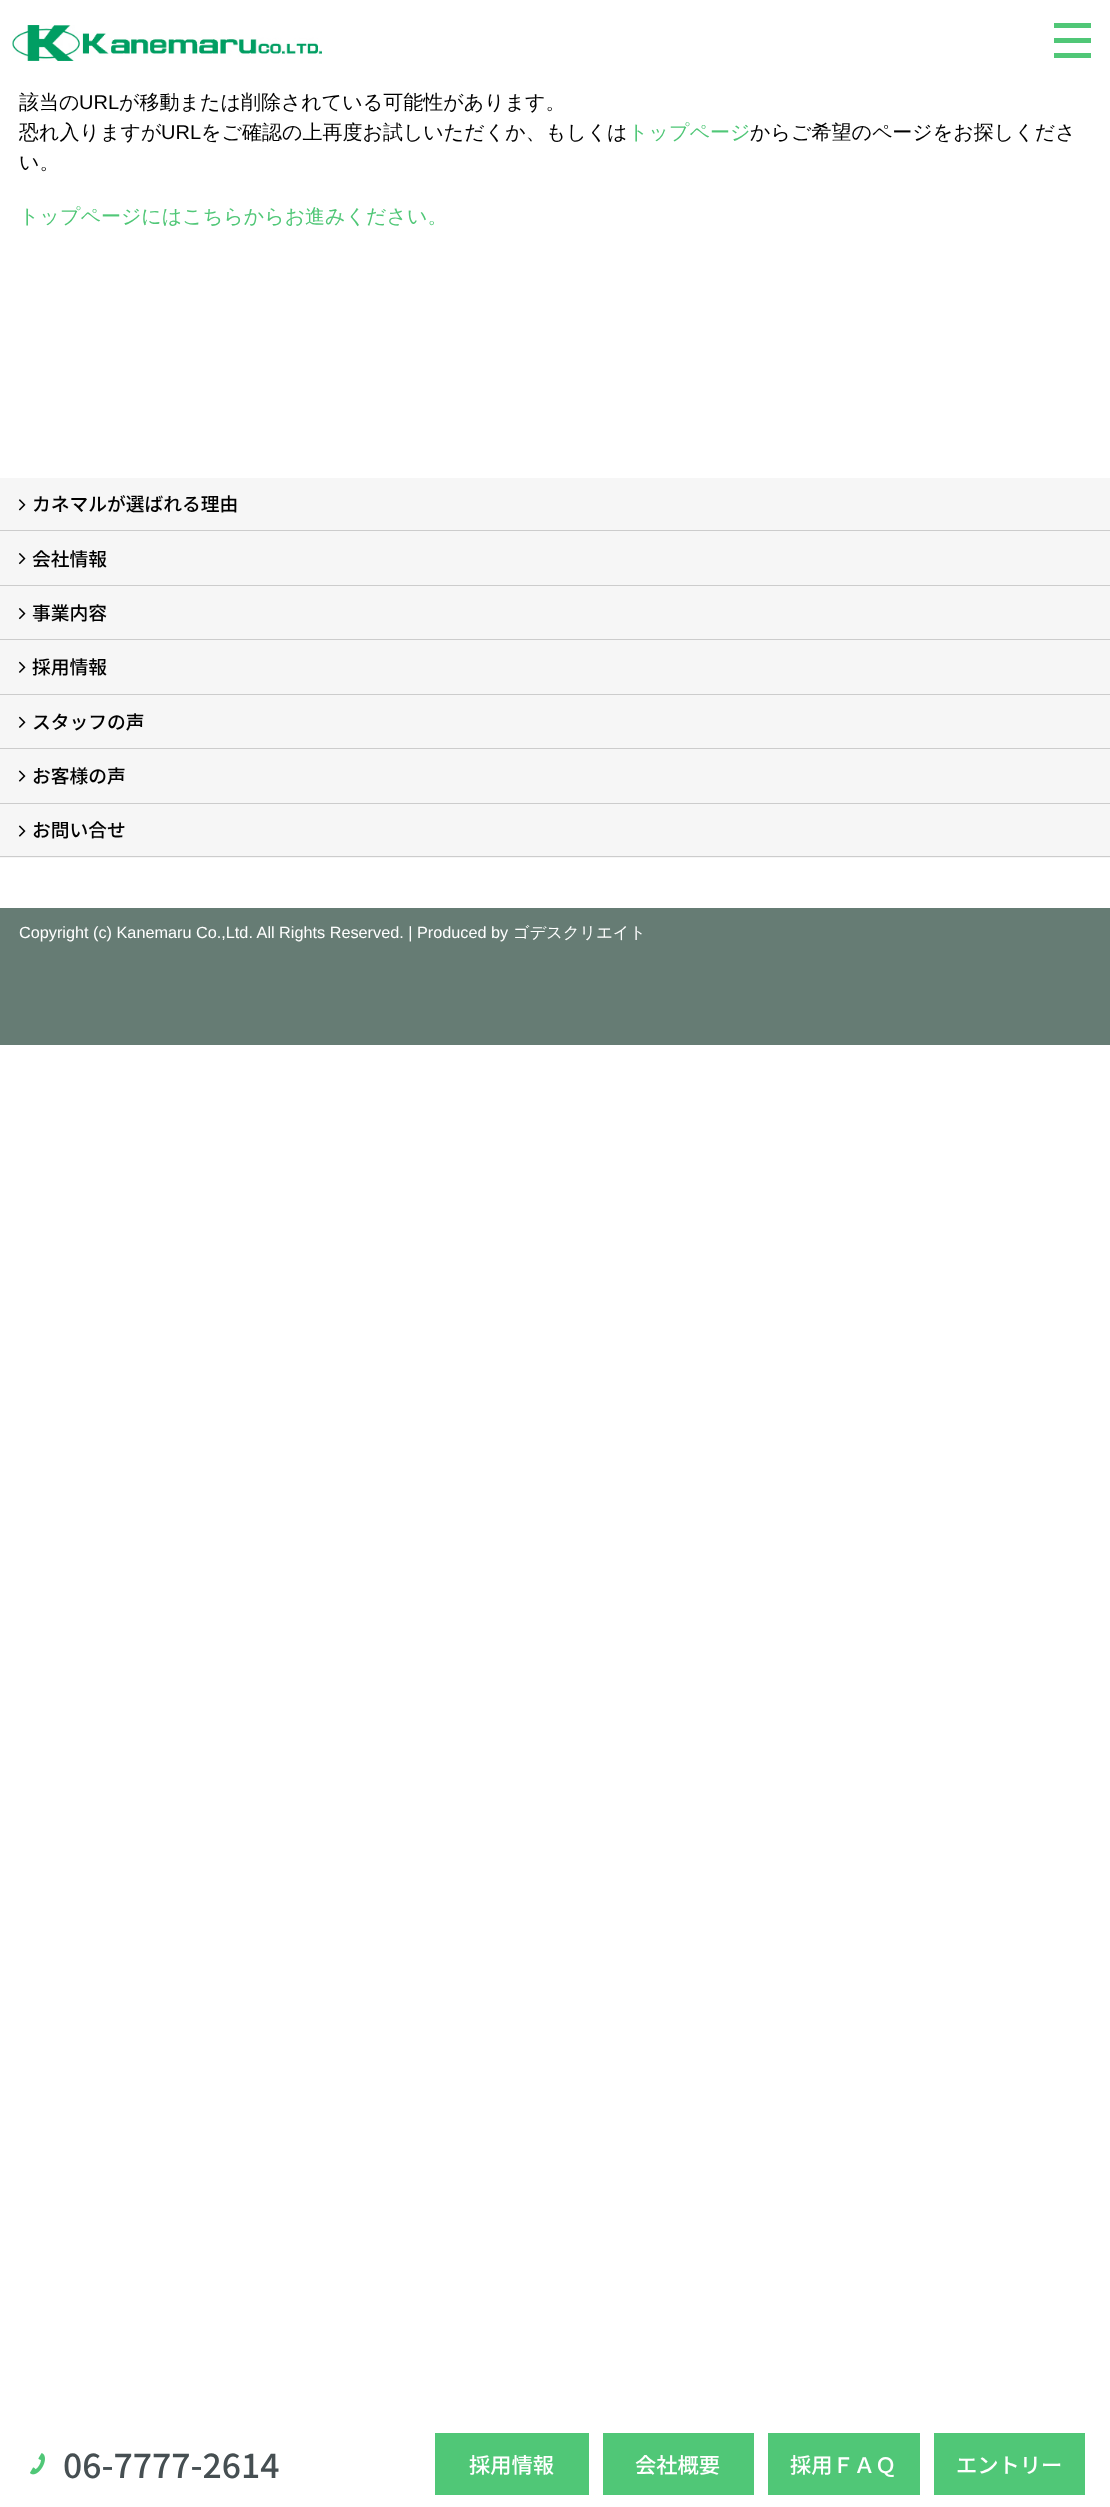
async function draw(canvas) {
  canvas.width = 1110
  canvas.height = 2507
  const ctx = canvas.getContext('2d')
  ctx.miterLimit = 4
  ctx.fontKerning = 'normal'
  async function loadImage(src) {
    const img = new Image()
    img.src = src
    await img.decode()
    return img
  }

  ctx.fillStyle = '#fff'
  ctx.fillRect(0, 0, 1110, 2507)
  ctx.drawImage(await loadImage('image0.png'), 12, 25, 310, 36)
  ctx.fillStyle = '#50c777'
  ctx.fillRect(1054, 23, 37, 5)
  ctx.fillRect(1054, 38, 37, 5)
  ctx.fillRect(1054, 53, 37, 5)
  ctx.font = '500 20px WenQuanYi Zen Hei'
  ctx.fillStyle = '#000'
  ctx.fillText('該当の', 19, 109)
  ctx.font = '20px Liberation Sans'
  ctx.fillText('URL', 79, 109)
  ctx.font = '500 20px WenQuanYi Zen Hei'
  ctx.fillText('が移動または削除されている可能性があります。', 119, 109)
  ctx.fillText('恐れ入りますが', 19, 139)
  ctx.font = '20px Liberation Sans'
  ctx.fillText('URL', 161, 139)
  ctx.font = '500 20px WenQuanYi Zen Hei'
  ctx.fillText('をご確認の上再度お試しいただくか、もしくは', 201, 139)
  ctx.fillStyle = '#50c777'
  ctx.fillText('トップページ', 628, 139)
  ctx.fillStyle = '#000'
  ctx.fillText('からご希望のページをお探しくださ', 750, 139)
  ctx.fillText('い。', 19, 169)
  ctx.fillStyle = '#50c777'
  ctx.fillText('トップページにはこちらからお進みください。', 19, 223)
  ctx.fillStyle = '#f6f6f6'
  ctx.fillRect(0, 478, 1110, 380)
  ctx.drawImage(await loadImage('image1.png'), 18, 499, 8, 12)
  ctx.font = '100 18.75px Noto Sans JP'
  ctx.fillStyle = '#000'
  ctx.fillText('カネマルが選ばれる理由', 32, 511)
  ctx.fillStyle = '#ccc'
  ctx.fillRect(0, 530, 1110, 1)
  ctx.drawImage(await loadImage('image2.png'), 18, 553, 8, 12)
  ctx.fillStyle = '#000'
  ctx.fillText('会社情報', 32, 566)
  ctx.fillStyle = '#ccc'
  ctx.fillRect(0, 585, 1110, 1)
  ctx.drawImage(await loadImage('image2.png'), 18, 608, 8, 12)
  ctx.fillStyle = '#000'
  ctx.fillText('事業内容', 32, 620)
  ctx.fillStyle = '#ccc'
  ctx.fillRect(0, 639, 1110, 1)
  ctx.drawImage(await loadImage('image3.png'), 18, 661, 8, 12)
  ctx.fillStyle = '#000'
  ctx.fillText('採用情報', 32, 674)
  ctx.fillStyle = '#ccc'
  ctx.fillRect(0, 694, 1110, 1)
  ctx.drawImage(await loadImage('image3.png'), 18, 716, 8, 12)
  ctx.fillStyle = '#000'
  ctx.fillText('スタッフの声', 32, 729)
  ctx.fillStyle = '#ccc'
  ctx.fillRect(0, 748, 1110, 1)
  ctx.drawImage(await loadImage('image4.png'), 18, 770, 8, 12)
  ctx.fillStyle = '#000'
  ctx.fillText('お客様の声', 32, 783)
  ctx.fillStyle = '#ccc'
  ctx.fillRect(0, 803, 1110, 1)
  ctx.drawImage(await loadImage('image4.png'), 18, 825, 8, 12)
  ctx.fillStyle = '#000'
  ctx.fillText('お問い合せ', 32, 837)
  ctx.fillStyle = '#ccc'
  ctx.fillRect(0, 856, 1110, 1)
  ctx.fillStyle = '#667c74'
  ctx.fillRect(0, 908, 1110, 137)
  ctx.font = '16.25px Liberation Sans'
  ctx.fillStyle = '#fff'
  ctx.fillText('Copyright (c) Kanemaru Co.,Ltd. All Rights Reserved. | Produced by', 19, 938)
  ctx.font = '500 16.25px WenQuanYi Zen Hei'
  ctx.fillText('ゴデスクリエイト', 513, 938)
  ctx.drawImage(await loadImage('image5.png'), 30, 2453, 15, 22)
  ctx.font = '100 33.75px Noto Sans JP'
  ctx.fillStyle = '#464f52'
  ctx.fillText('06-7777-2614', 63, 2478)
  ctx.fillStyle = '#50c777'
  ctx.fillRect(435, 2433, 154, 62)
  ctx.font = '100 21.25px Noto Sans JP'
  ctx.fillStyle = '#fff'
  ctx.fillText('採用情報', 469, 2473)
  ctx.fillStyle = '#50c777'
  ctx.fillRect(603, 2433, 151, 62)
  ctx.fillStyle = '#fff'
  ctx.fillText('会社概要', 635, 2473)
  ctx.fillStyle = '#50c777'
  ctx.fillRect(768, 2433, 152, 62)
  ctx.fillStyle = '#fff'
  ctx.fillText('採用ＦＡＱ', 790, 2473)
  ctx.fillStyle = '#50c777'
  ctx.fillRect(934, 2433, 151, 62)
  ctx.fillStyle = '#fff'
  ctx.fillText('エントリー', 956, 2473)
}

draw(document.querySelector('canvas'))
